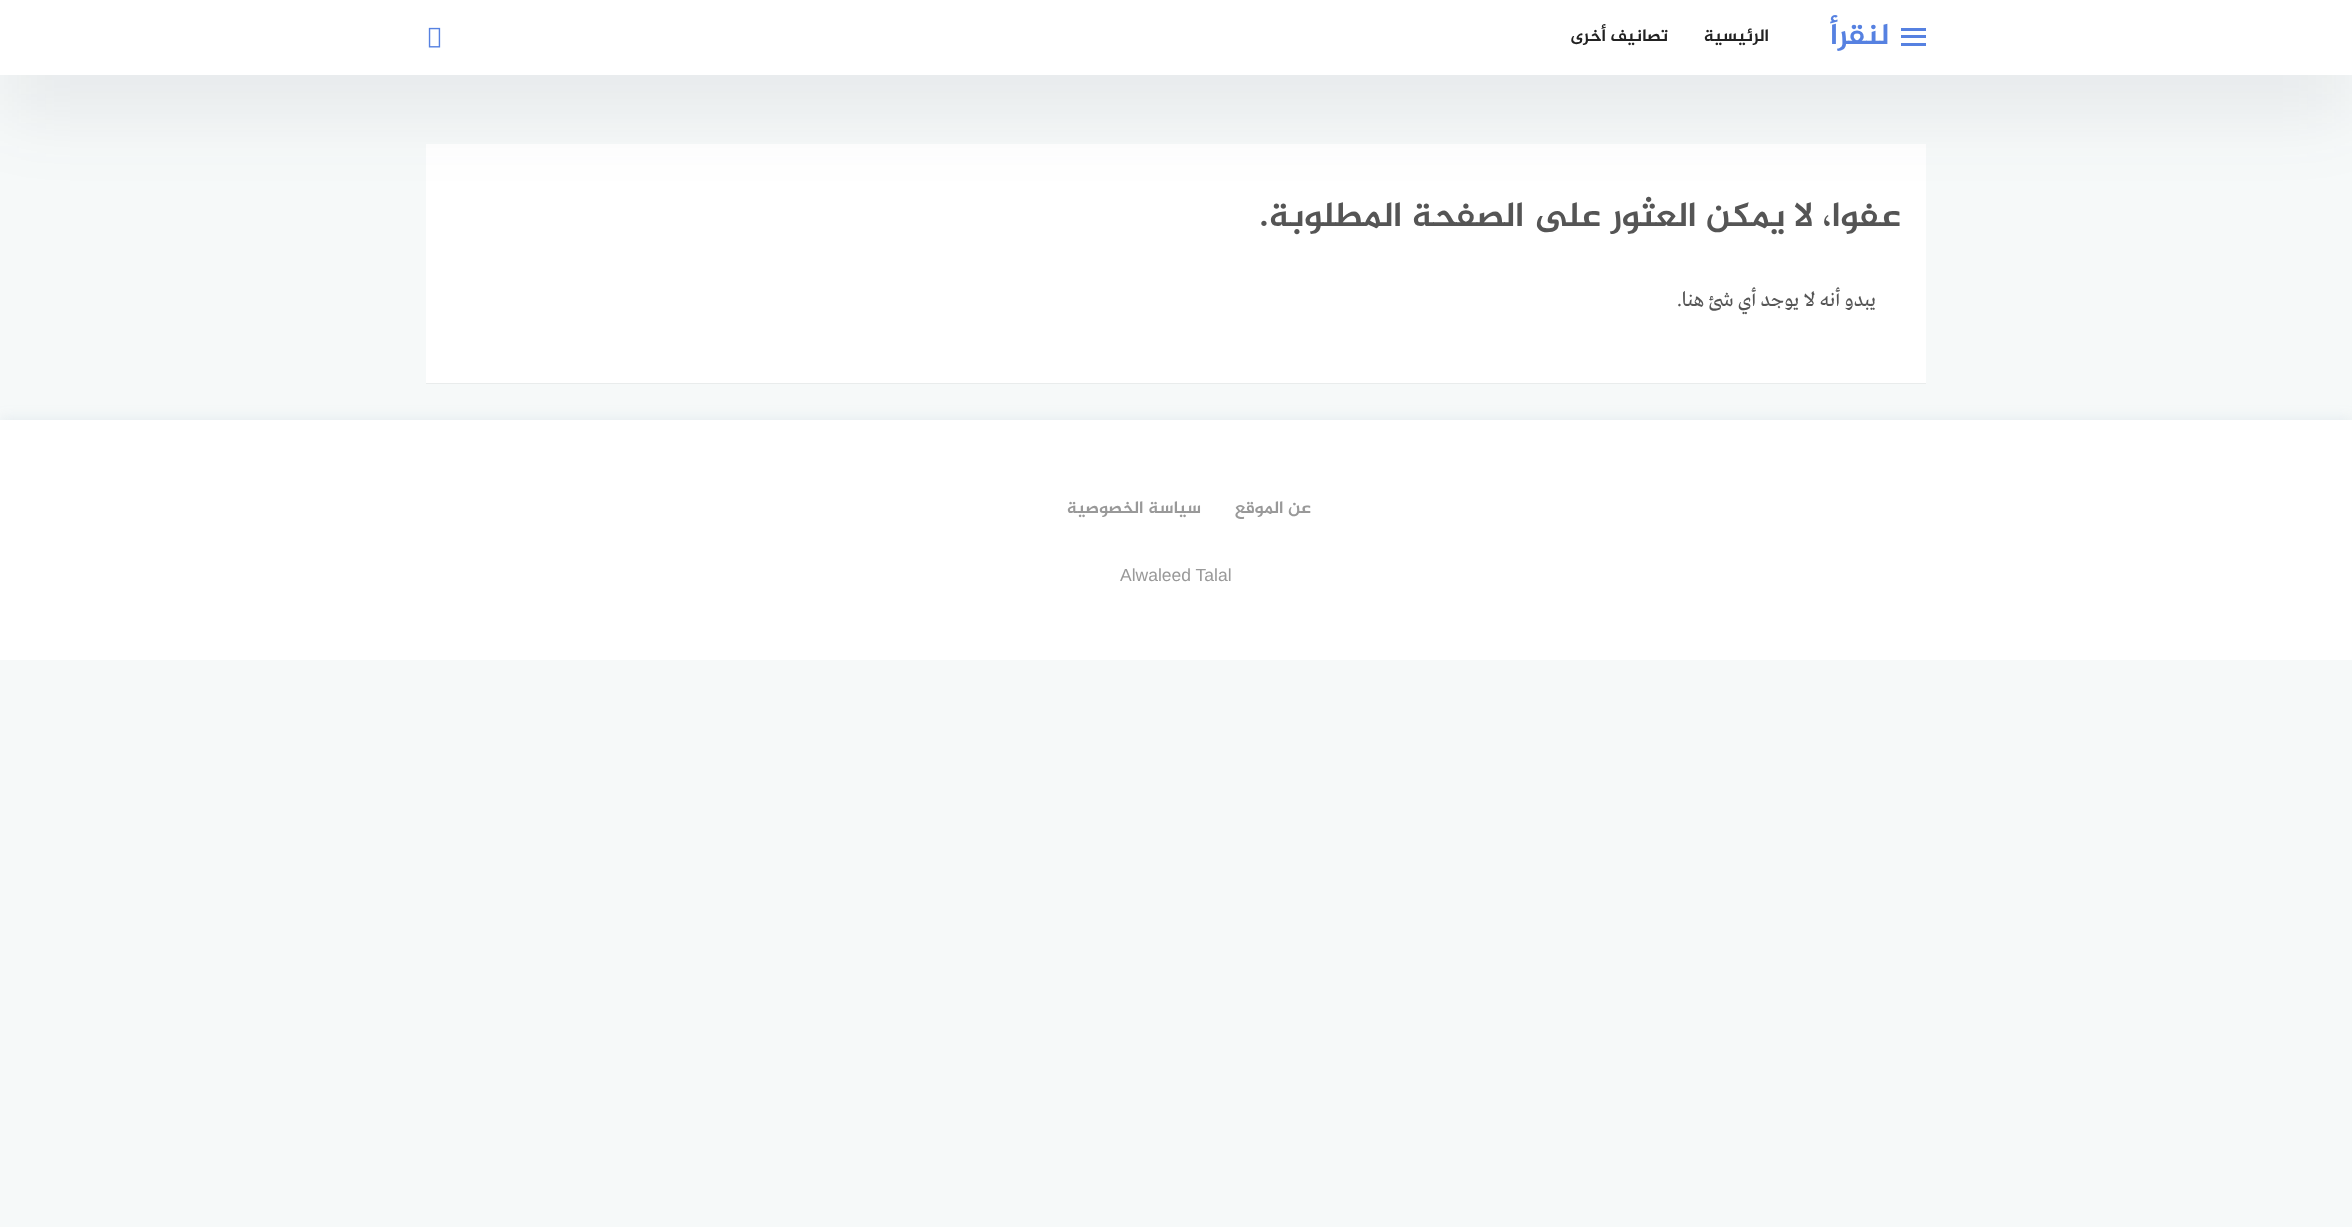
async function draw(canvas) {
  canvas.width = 2352
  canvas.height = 1227
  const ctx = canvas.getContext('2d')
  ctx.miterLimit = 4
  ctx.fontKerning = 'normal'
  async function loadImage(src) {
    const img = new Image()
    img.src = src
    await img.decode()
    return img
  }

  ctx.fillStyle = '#f6f9f9'
  ctx.fillRect(0, 0, 2352, 1227)
  ctx.fillStyle = '#0000000d'
  ctx.filter = 'blur(0.5px)'
  ctx.beginPath()
  ctx.rect(426, 145, 1500, 239)
  ctx.fill()
  ctx.filter = 'none'
  ctx.fillStyle = '#fff'
  ctx.fillRect(426, 144, 1500, 239)
  ctx.fillStyle = '#36394917'
  ctx.filter = 'blur(37.5px)'
  ctx.beginPath()
  ctx.rect(0, 36, 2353, 75)
  ctx.fill()
  ctx.filter = 'none'
  ctx.fillStyle = '#fff'
  ctx.fillRect(0, 0, 2352, 75)
  ctx.fillStyle = '#5681e1'
  ctx.fillRect(1901, 28, 25, 3)
  ctx.fillRect(1901, 35, 25, 3)
  ctx.fillRect(1901, 43, 25, 3)
  ctx.direction = 'rtl'
  ctx.font = 'bold 30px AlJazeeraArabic'
  ctx.fillText('لنقرأ', 1889, 44)
  ctx.font = 'bold 17.5px AlJazeeraArabic'
  ctx.fillStyle = '#222'
  ctx.fillText('الرئيسية', 1769, 41)
  ctx.fillText('تصانيف أخرى', 1668, 41)
  ctx.drawImage(await loadImage('image0.png'), 428, 27, 13, 21)
  ctx.font = 'bold 35px AlJazeeraArabic'
  ctx.fillStyle = '#555'
  ctx.fillText('عفوا، لا يمكن العثور على الصفحة المطلوبة.', 1901, 226)
  ctx.font = '21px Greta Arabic'
  ctx.fillText('يبدو أنه لا يوجد أي شئ هنا.', 1876, 306)
  ctx.save()
  ctx.beginPath()
  ctx.rect(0, 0, 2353, 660)
  ctx.clip()
  ctx.fillStyle = '#6e8fab26'
  ctx.filter = 'blur(7.5px)'
  ctx.beginPath()
  ctx.rect(0, 420, 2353, 240)
  ctx.fill()
  ctx.filter = 'none'
  ctx.restore()
  ctx.fillStyle = '#fff'
  ctx.fillRect(0, 420, 2352, 240)
  ctx.font = 'bold 17.5px AlJazeeraArabic'
  ctx.fillStyle = '#999'
  ctx.fillText('عن الموقع', 1311, 513)
  ctx.fillText('سياسة الخصوصية', 1201, 513)
  ctx.direction = 'ltr'
  ctx.font = '17.5px Liberation Sans'
  ctx.fillText('Alwaleed Talal', 1120, 581)
}

draw(document.querySelector('canvas'))
